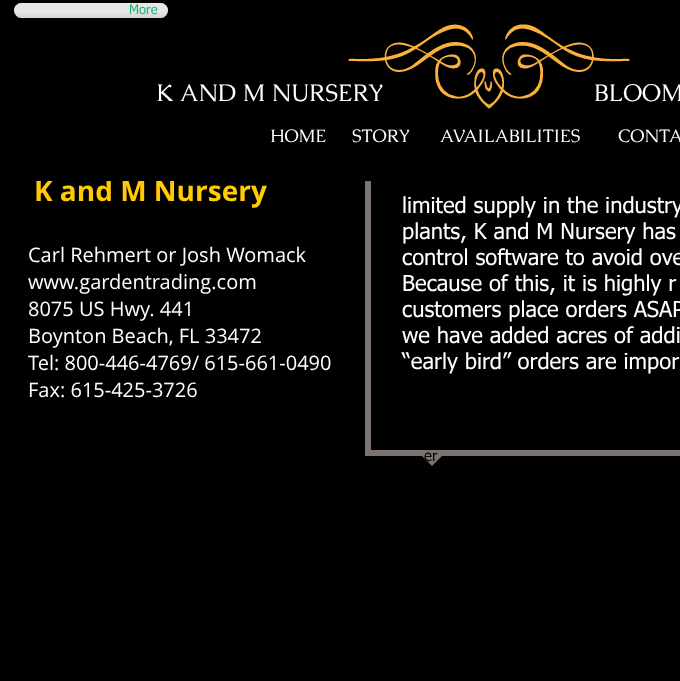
async function draw(canvas) {
  canvas.width = 680
  canvas.height = 681
  const ctx = canvas.getContext('2d')
  ctx.miterLimit = 4
  ctx.fontKerning = 'normal'
  async function loadImage(src) {
    const img = new Image()
    img.src = src
    await img.decode()
    return img
  }

  ctx.fillStyle = '#000'
  ctx.fillRect(0, 0, 680, 681)
  ctx.fillStyle = '#fff'
  ctx.beginPath()
  ctx.roundRect(14, 3, 154, 15, 7.5)
  ctx.fill()
  ctx.drawImage(await loadImage('image0.png'), 14, 3, 154, 15)
  ctx.drawImage(await loadImage('image1.png'), 14, 3, 154, 15)
  ctx.font = '13px tahoma'
  ctx.fillStyle = '#0fbc71'
  ctx.fillText('More', 129, 14)
  ctx.drawImage(await loadImage('image2.png'), 348, 24, 282, 85)
  ctx.font = '24px Caudex'
  ctx.fillStyle = '#fff'
  ctx.fillText('K AND M NURSERY', 156, 101)
  ctx.fillText('BLOOM', 594, 101)
  ctx.font = 'bold 28px Open Sans'
  ctx.fillStyle = '#ffcb05'
  ctx.fillText('K and M Nursery', 34, 201)
  ctx.strokeStyle = '#7b736f'
  ctx.lineWidth = 6
  ctx.strokeRect(368, 126, 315, 327)
  ctx.fillStyle = '#000'
  ctx.fillRect(106, 123, 574, 58)
  ctx.font = '18px Caudex'
  ctx.fillStyle = '#fff'
  ctx.fillText('HOME', 270, 142)
  ctx.fillText('STORY', 352, 142)
  ctx.fillText('AVAILABILITIES', 440, 142)
  ctx.fillText('CONTA', 618, 142)
  ctx.font = '22px tahoma'
  ctx.fillText('limited supply in the industry', 402, 213)
  ctx.fillText('plants, K and M Nursery has', 402, 239)
  ctx.fillText('control software to avoid ove', 402, 265)
  ctx.fillText('Because of this, it is highly r', 402, 291)
  ctx.fillText('customers place orders ASAP', 402, 317)
  ctx.fillText('we have added acres of addi', 402, 343)
  ctx.fillText('“early bird” orders are impor', 402, 369)
  ctx.fillStyle = '#7b736f'
  ctx.beginPath()
  ctx.moveTo(422, 456)
  ctx.lineTo(442, 456)
  ctx.lineTo(432, 466)
  ctx.closePath()
  ctx.fill()
  ctx.font = '15px tahoma'
  ctx.fillStyle = '#060605'
  ctx.fillText('er', 424, 461)
  ctx.font = '20px Open Sans'
  ctx.fillStyle = '#fff'
  ctx.fillText('Carl Rehmert or Josh Womack', 28, 262)
  ctx.fillText('www.gardentrading.com', 28, 289)
  ctx.fillText('8075 US Hwy. 441', 28, 316)
  ctx.fillText('Boynton Beach, FL 33472', 28, 343)
  ctx.fillText('Tel: 800-446-4769/ 615-661-0490', 28, 370)
  ctx.fillText('Fax: 615-425-3726', 28, 397)
}

draw(document.querySelector('canvas'))
